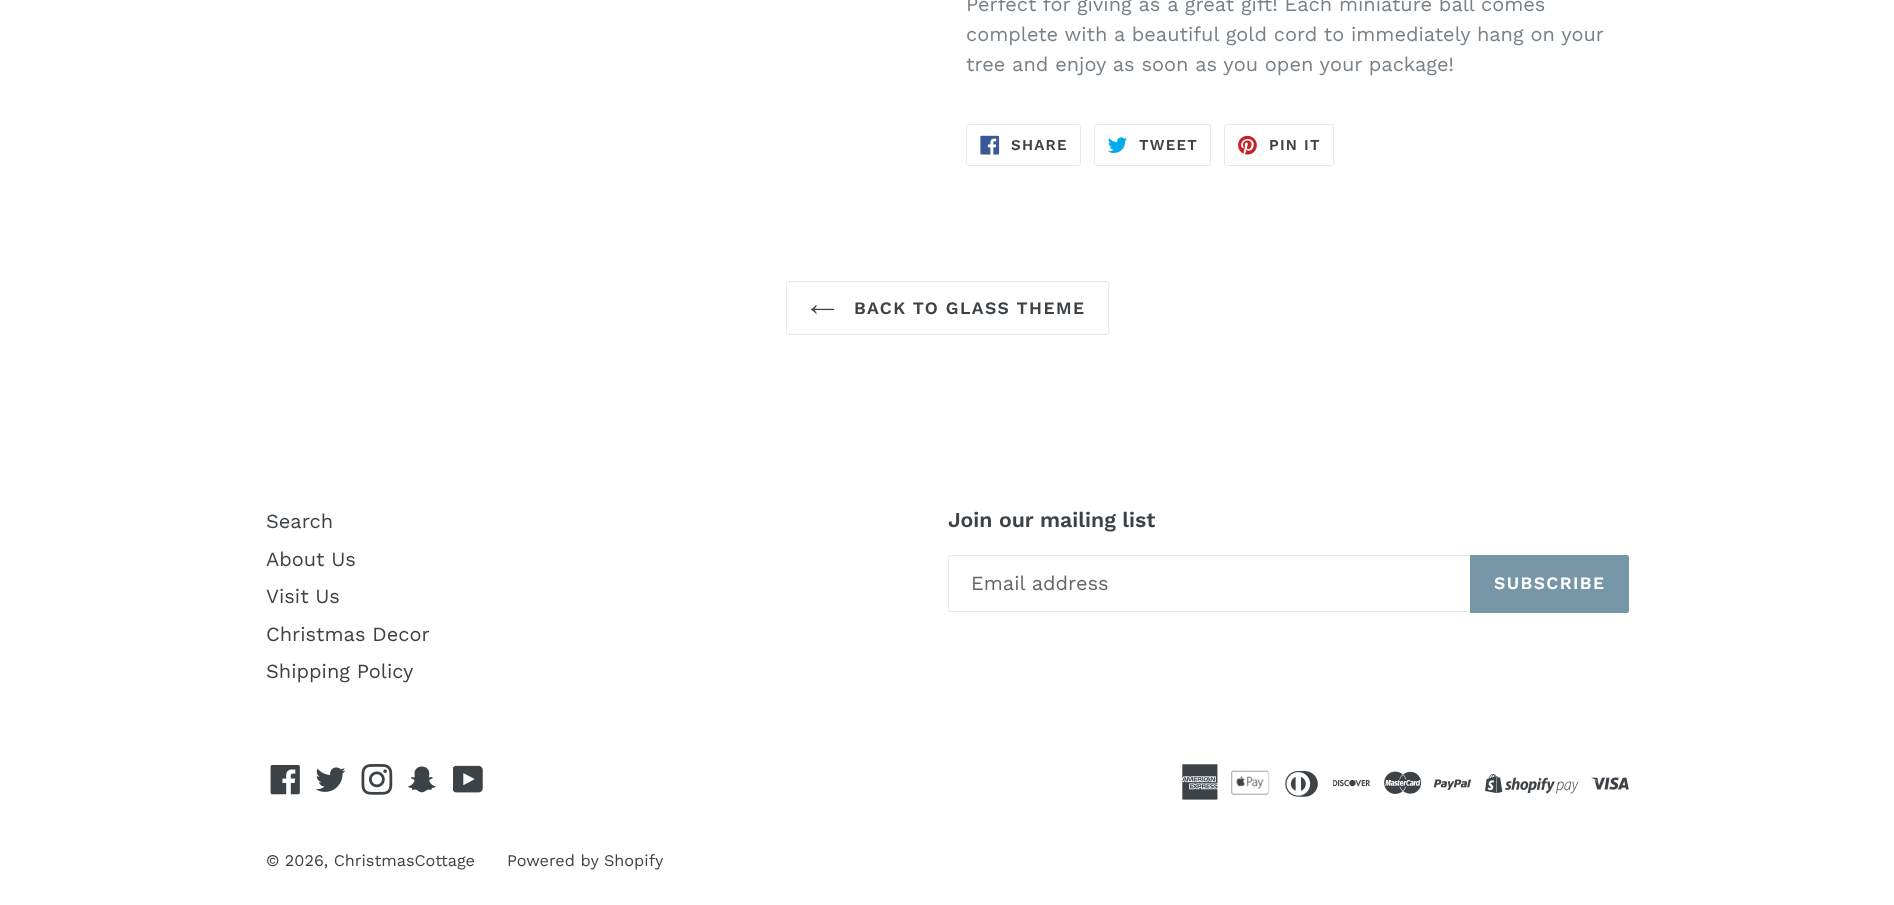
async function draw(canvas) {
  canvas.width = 1894
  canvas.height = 905
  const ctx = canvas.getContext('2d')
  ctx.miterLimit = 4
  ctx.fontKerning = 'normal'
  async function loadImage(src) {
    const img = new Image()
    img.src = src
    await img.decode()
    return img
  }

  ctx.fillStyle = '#fff'
  ctx.fillRect(0, 0, 1894, 905)
  ctx.font = '20px Work Sans'
  ctx.fillStyle = '#788188'
  ctx.fillText('Perfect for giving as a great gift! Each miniature ball comes', 966, 11)
  ctx.fillText('complete with a beautiful gold cord to immediately hang on your', 966, 41)
  ctx.fillText('tree and enjoy as soon as you open your package!', 966, 71)
  ctx.beginPath()
  ctx.roundRect(966.5, 124.5, 114, 41, 2)
  ctx.strokeStyle = '#e8e9eb'
  ctx.stroke()
  ctx.drawImage(await loadImage('image0.png'), 980, 135, 20, 20)
  ctx.letterSpacing = '1.25px'
  ctx.font = '600 15px Work Sans'
  ctx.fillStyle = '#3d4246'
  ctx.fillText('SHARE', 1011, 150)
  ctx.beginPath()
  ctx.roundRect(1094.5, 124.5, 116, 41, 2)
  ctx.stroke()
  ctx.drawImage(await loadImage('image1.png'), 1108, 137, 19, 16)
  ctx.fillText('TWEET', 1139, 150)
  ctx.beginPath()
  ctx.roundRect(1224.5, 124.5, 109, 41, 2)
  ctx.stroke()
  ctx.drawImage(await loadImage('image2.png'), 1238, 135, 19, 20)
  ctx.fillText('PIN IT', 1269, 150)
  ctx.beginPath()
  ctx.roundRect(786.5, 281.5, 322, 53, 2)
  ctx.stroke()
  ctx.drawImage(await loadImage('image3.png'), 811, 305, 24, 9)
  ctx.letterSpacing = '1.4px'
  ctx.font = '600 17.5px Work Sans'
  ctx.fillText('BACK TO GLASS THEME', 854, 314)
  ctx.letterSpacing = '0px'
  ctx.font = '20px Work Sans'
  ctx.fillText('Search', 266, 528)
  ctx.fillText('About Us', 266, 566)
  ctx.fillText('Visit Us', 266, 603)
  ctx.fillText('Christmas Decor', 266, 641)
  ctx.fillText('Shipping Policy', 266, 678)
  ctx.font = '600 21.25px Work Sans'
  ctx.fillText('Join our mailing list', 948, 527)
  ctx.fillStyle = '#e8e9eb'
  ctx.fillRect(949, 555, 521, 1)
  ctx.fillRect(949, 611, 521, 1)
  ctx.fillRect(948, 556, 1, 55)
  ctx.font = '20px Work Sans'
  ctx.fillStyle = '#666'
  ctx.fillText('Email address', 971, 590)
  ctx.fillStyle = '#7796a8'
  ctx.beginPath()
  ctx.roundRect(1470, 555, 159, 58, [0, 2.5, 2.5, 0])
  ctx.fill()
  ctx.letterSpacing = '1.4px'
  ctx.font = '600 17.5px Work Sans'
  ctx.fillStyle = '#fff'
  ctx.fillText('SUBSCRIBE', 1494, 589)
  ctx.drawImage(await loadImage('image4.png'), 270, 765, 30, 30)
  ctx.drawImage(await loadImage('image5.png'), 315, 767, 31, 25)
  ctx.drawImage(await loadImage('image6.png'), 361, 764, 32, 31)
  ctx.drawImage(await loadImage('image7.png'), 408, 766, 28, 27)
  ctx.drawImage(await loadImage('image8.png'), 453, 765, 30, 28)
  ctx.drawImage(await loadImage('image9.png'), 1182, 764, 36, 36)
  ctx.drawImage(await loadImage('image10.png'), 1231, 770, 39, 25)
  ctx.drawImage(await loadImage('image11.png'), 1285, 771, 33, 26)
  ctx.drawImage(await loadImage('image12.png'), 1333, 779, 37, 8)
  ctx.drawImage(await loadImage('image13.png'), 1384, 771, 37, 23)
  ctx.drawImage(await loadImage('image14.png'), 1434, 779, 37, 11)
  ctx.drawImage(await loadImage('image15.png'), 1485, 774, 94, 20)
  ctx.drawImage(await loadImage('image16.png'), 1591, 777, 38, 13)
  ctx.letterSpacing = '0px'
  ctx.font = '16.25px Work Sans'
  ctx.fillStyle = '#3d4246'
  ctx.fillText('© 2026, ChristmasCottage', 266, 866)
  ctx.fillText('Powered by Shopify', 507, 866)
}

draw(document.querySelector('canvas'))
